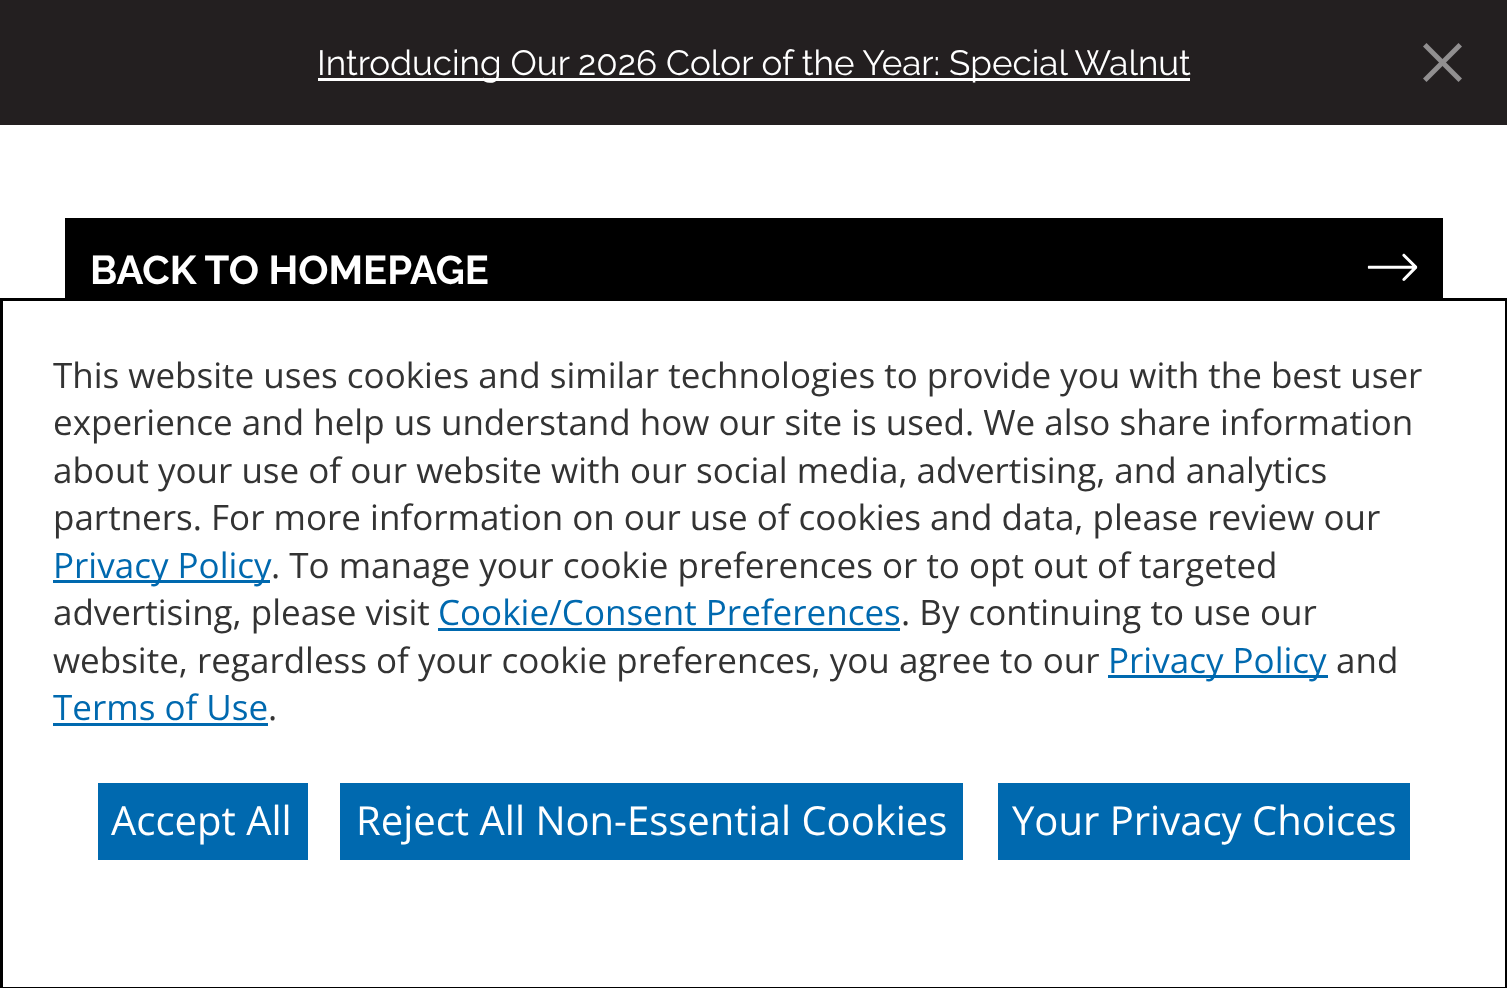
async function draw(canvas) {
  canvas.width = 1507
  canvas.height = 988
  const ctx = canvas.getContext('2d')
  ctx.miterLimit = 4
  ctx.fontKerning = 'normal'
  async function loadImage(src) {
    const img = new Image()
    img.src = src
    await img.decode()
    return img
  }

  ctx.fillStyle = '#fff'
  ctx.fillRect(0, 0, 1507, 988)
  ctx.fillStyle = '#231f20'
  ctx.fillRect(0, 0, 1507, 125)
  ctx.fillStyle = '#fff'
  ctx.fillRect(318, 78, 872, 3)
  ctx.font = '35px Raleway'
  ctx.fillText('Introducing Our 2026 Color of the Year: Special Walnut', 317, 75)
  ctx.fillStyle = '#918f90'
  ctx.beginPath()
  ctx.moveTo(1458.5, 43)
  ctx.lineTo(1462, 46.5)
  ctx.lineTo(1426.5, 82)
  ctx.lineTo(1423, 78.5)
  ctx.closePath()
  ctx.fill()
  ctx.beginPath()
  ctx.moveTo(1423, 46.5)
  ctx.lineTo(1426.5, 43)
  ctx.lineTo(1462, 78.5)
  ctx.lineTo(1458.5, 82)
  ctx.closePath()
  ctx.fill()
  ctx.fillStyle = '#000'
  ctx.fillRect(65, 218, 1378, 80)
  ctx.font = 'bold 40px Raleway'
  ctx.fillStyle = '#fff'
  ctx.fillText('BACK TO HOMEPAGE', 90, 284)
  ctx.drawImage(await loadImage('image0.png'), 1367, 253, 51, 28)
  ctx.strokeStyle = '#000'
  ctx.lineWidth = 3
  ctx.strokeRect(1.5, 299.5, 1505, 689)
  ctx.font = '35px Open Sans'
  ctx.fillStyle = '#333'
  ctx.fillText('This website uses cookies and similar technologies to provide you with the best user', 53, 388)
  ctx.fillText('experience and help us understand how our site is used. We also share information', 53, 435)
  ctx.fillText('about your use of our website with our social media, advertising, and analytics', 53, 483)
  ctx.fillText('partners. For more information on our use of cookies and data, please review our', 53, 530)
  ctx.fillStyle = '#0069af'
  ctx.fillRect(53, 580, 217, 3)
  ctx.fillText('Privacy Policy', 53, 578)
  ctx.fillStyle = '#333'
  ctx.fillText('. To manage your cookie preferences or to opt out of targeted', 271, 578)
  ctx.fillText('advertising, please visit', 53, 625)
  ctx.fillStyle = '#0069af'
  ctx.fillText('Cookie/Consent Preferences', 438, 625)
  ctx.fillRect(438, 628, 462, 3)
  ctx.fillStyle = '#333'
  ctx.fillText('. By continuing to use our', 901, 625)
  ctx.fillText('website, regardless of your cookie preferences, you agree to our', 53, 673)
  ctx.fillStyle = '#0069af'
  ctx.fillRect(1108, 675, 220, 3)
  ctx.fillText('Privacy Policy', 1108, 673)
  ctx.fillStyle = '#333'
  ctx.fillText('and', 1336, 673)
  ctx.fillStyle = '#0069af'
  ctx.fillText('Terms of Use', 53, 720)
  ctx.fillRect(53, 723, 215, 3)
  ctx.fillStyle = '#333'
  ctx.fillText('.', 268, 720)
  ctx.fillStyle = '#0069af'
  ctx.fillRect(98, 783, 210, 77)
  ctx.font = '40px Open Sans'
  ctx.fillStyle = '#fff'
  ctx.fillText('Accept All', 111, 835)
  ctx.fillStyle = '#0069af'
  ctx.fillRect(340, 783, 623, 77)
  ctx.fillStyle = '#fff'
  ctx.fillText('Reject All Non-Essential Cookies', 356, 835)
  ctx.fillStyle = '#0069af'
  ctx.fillRect(998, 783, 412, 77)
  ctx.fillStyle = '#fff'
  ctx.fillText('Your Privacy Choices', 1012, 835)
}

draw(document.querySelector('canvas'))
